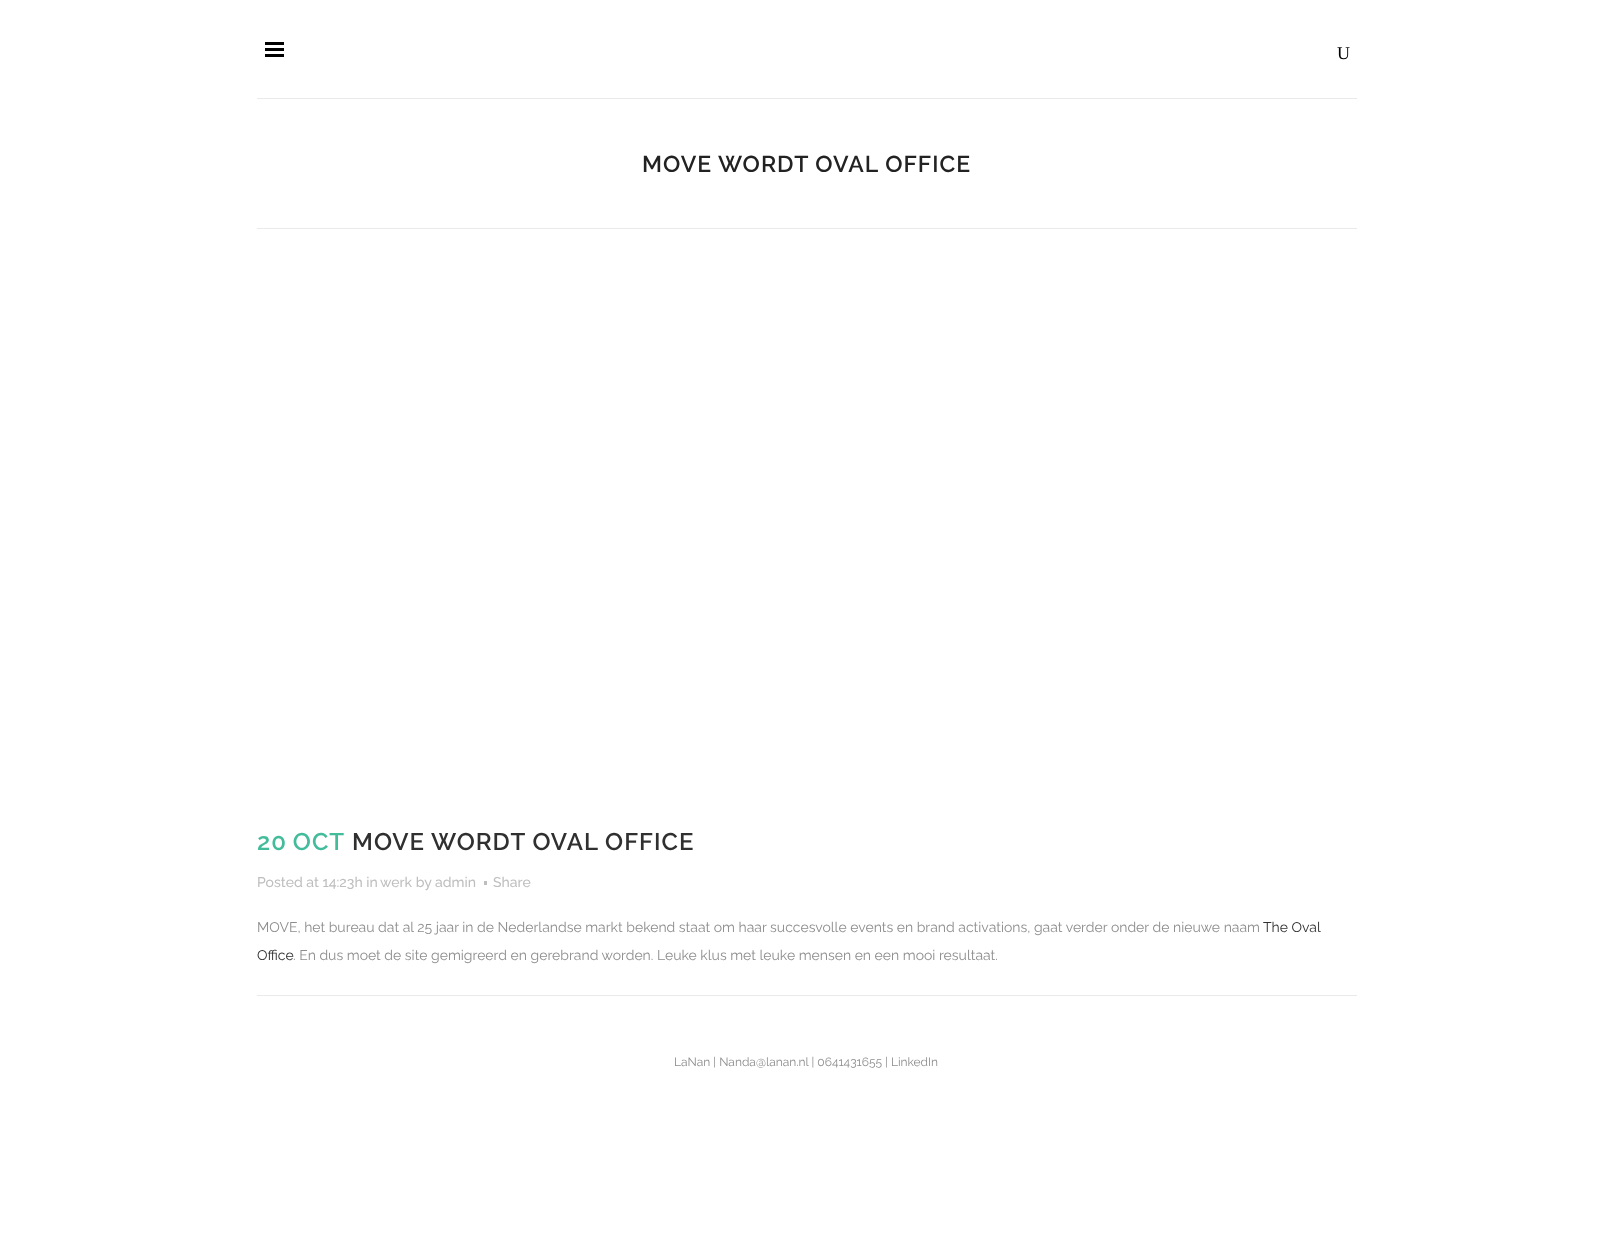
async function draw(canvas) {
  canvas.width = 1613
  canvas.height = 1258
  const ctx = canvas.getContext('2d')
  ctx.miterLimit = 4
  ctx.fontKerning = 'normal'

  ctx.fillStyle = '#fff'
  ctx.fillRect(0, 0, 1613, 1258)
  ctx.fillStyle = '#eaeaea'
  ctx.fillRect(257, 98, 1100, 1)
  ctx.fillStyle = '#000'
  ctx.fillRect(265, 48, 19, 3)
  ctx.fillRect(265, 42, 19, 3)
  ctx.fillRect(265, 54, 19, 3)
  ctx.font = '18px Liberation Serif'
  ctx.fillText('U', 1337, 59)
  ctx.letterSpacing = '1px'
  ctx.font = '600 23px Raleway'
  ctx.fillStyle = '#222'
  ctx.fillText('MOVE WORDT OVAL OFFICE', 642, 172)
  ctx.fillStyle = '#eaeaea'
  ctx.fillRect(257, 228, 1100, 1)
  ctx.wordSpacing = '-1px'
  ctx.font = '600 24px Raleway'
  ctx.fillStyle = '#42bc9b'
  ctx.fillText('20 OCT', 257, 850)
  ctx.wordSpacing = '0px'
  ctx.fillStyle = '#303030'
  ctx.fillText('MOVE WORDT OVAL OFFICE', 352, 850)
  ctx.letterSpacing = '0px'
  ctx.font = '500 14px Raleway'
  ctx.fillStyle = '#bebebe'
  ctx.fillText('Posted at 14:23h in', 257, 887)
  ctx.fillText('werk by admin', 380, 887)
  ctx.fillRect(484, 881, 3, 4)
  ctx.fillText('Share', 493, 887)
  ctx.font = '14px Raleway'
  ctx.fillStyle = '#8d8d8d'
  ctx.fillText('MOVE, het bureau dat al 25 jaar in de Nederlandse markt bekend staat om haar succesvolle events en brand activations, gaat verder onder de nieuwe naam', 257, 932)
  ctx.fillStyle = '#303030'
  ctx.fillText('The Oval', 1263, 932)
  ctx.fillText('Office', 257, 960)
  ctx.fillStyle = '#8d8d8d'
  ctx.fillText('. En dus moet de site gemigreerd en gerebrand worden. Leuke klus met leuke mensen en een mooi resultaat.', 293, 960)
  ctx.fillStyle = '#eaeaea'
  ctx.fillRect(257, 995, 1100, 1)
  ctx.font = '12px Raleway'
  ctx.fillStyle = '#8d8d8d'
  ctx.fillText('LaNan | Nanda@lanan.nl | 0641431655 | LinkedIn', 674, 1066)
}

draw(document.querySelector('canvas'))
